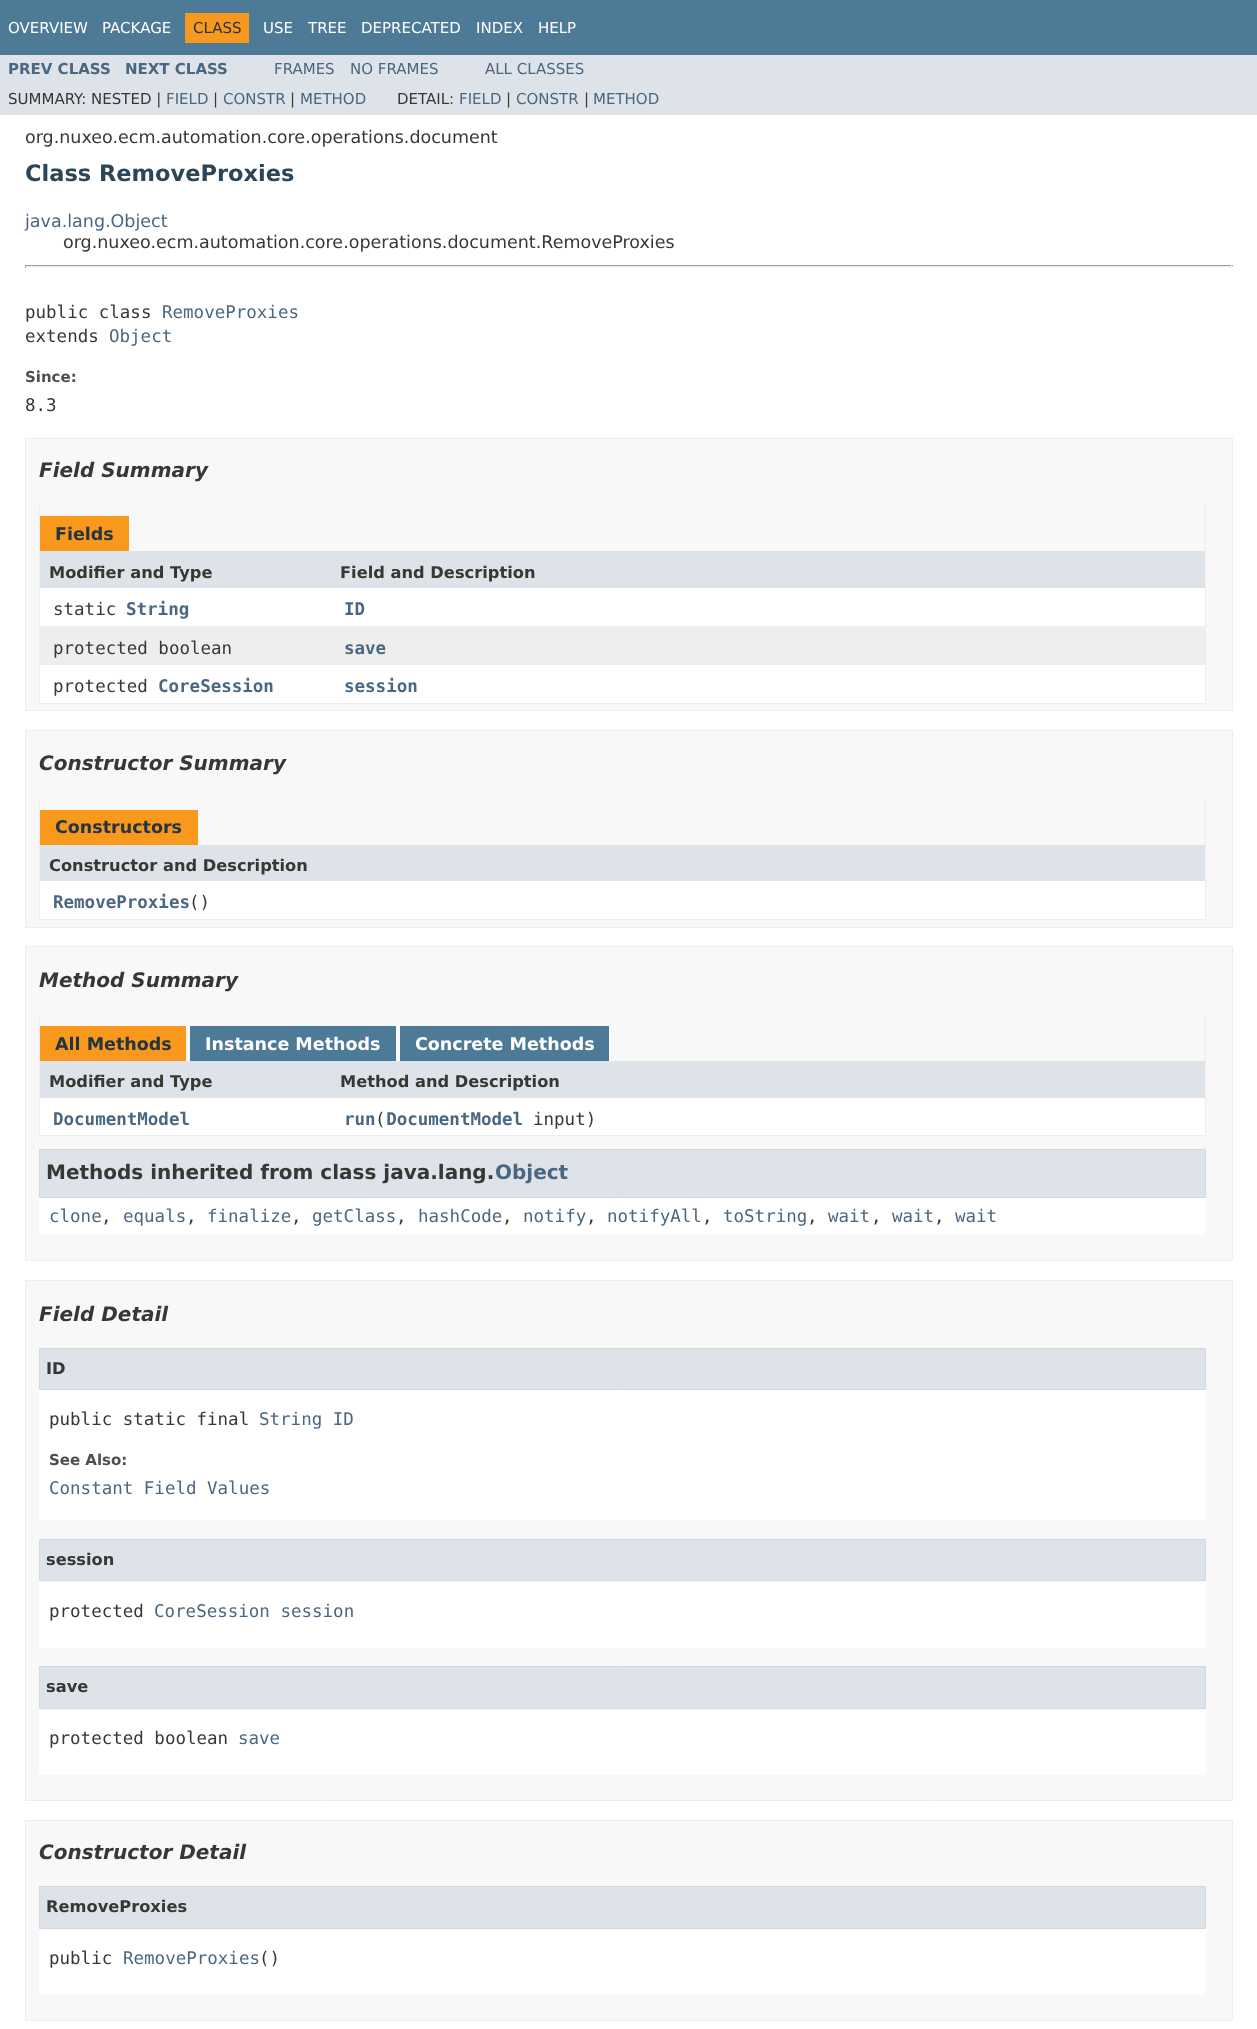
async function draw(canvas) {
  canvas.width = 1257
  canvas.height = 2029
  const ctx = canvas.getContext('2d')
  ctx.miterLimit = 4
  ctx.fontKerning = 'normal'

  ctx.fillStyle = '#fff'
  ctx.fillRect(0, 0, 1257, 2029)
  ctx.fillStyle = '#4d7a97'
  ctx.fillRect(0, 0, 1257, 55)
  ctx.font = '15px DejaVu Sans'
  ctx.fillStyle = '#fff'
  ctx.fillText('OVERVIEW', 8, 33)
  ctx.fillText('PACKAGE', 102, 33)
  ctx.fillStyle = '#f8981d'
  ctx.fillRect(185, 13, 64, 30)
  ctx.fillStyle = '#253441'
  ctx.fillText('CLASS', 193, 33)
  ctx.fillStyle = '#fff'
  ctx.fillText('USE', 263, 33)
  ctx.fillText('TREE', 308, 33)
  ctx.fillText('DEPRECATED', 361, 33)
  ctx.fillText('INDEX', 476, 33)
  ctx.fillText('HELP', 538, 33)
  ctx.fillStyle = '#dee3e9'
  ctx.fillRect(0, 55, 1257, 60)
  ctx.font = 'bold 15px DejaVu Sans'
  ctx.fillStyle = '#4a6782'
  ctx.fillText('PREV CLASS', 8, 74)
  ctx.fillText('NEXT CLASS', 125, 74)
  ctx.font = '15px DejaVu Sans'
  ctx.fillText('FRAMES', 274, 74)
  ctx.fillText('NO FRAMES', 350, 74)
  ctx.fillText('ALL CLASSES', 485, 74)
  ctx.fillStyle = '#353833'
  ctx.fillText('SUMMARY: NESTED |', 8, 104)
  ctx.fillStyle = '#4a6782'
  ctx.fillText('FIELD', 166, 104)
  ctx.fillStyle = '#353833'
  ctx.fillText('|', 213, 104)
  ctx.fillStyle = '#4a6782'
  ctx.fillText('CONSTR', 223, 104)
  ctx.fillStyle = '#353833'
  ctx.fillText('|', 290, 104)
  ctx.fillStyle = '#4a6782'
  ctx.fillText('METHOD', 300, 104)
  ctx.fillStyle = '#353833'
  ctx.fillText('DETAIL:', 397, 104)
  ctx.fillStyle = '#4a6782'
  ctx.fillText('FIELD', 459, 104)
  ctx.fillStyle = '#353833'
  ctx.fillText('|', 506, 104)
  ctx.fillStyle = '#4a6782'
  ctx.fillText('CONSTR', 516, 104)
  ctx.fillStyle = '#353833'
  ctx.fillText('|', 584, 104)
  ctx.fillStyle = '#4a6782'
  ctx.fillText('METHOD', 593, 104)
  ctx.font = '17.5px DejaVu Sans'
  ctx.fillStyle = '#353833'
  ctx.fillText('org.nuxeo.ecm.automation.core.operations.document', 25, 143)
  ctx.font = 'bold 22.5px DejaVu Sans'
  ctx.fillStyle = '#2c4557'
  ctx.fillText('Class RemoveProxies', 25, 181)
  ctx.font = '17.5px DejaVu Sans'
  ctx.fillStyle = '#4a6782'
  ctx.fillText('java.lang.Object', 25, 227)
  ctx.fillStyle = '#353833'
  ctx.fillText('org.nuxeo.ecm.automation.core.operations.document.RemoveProxies', 63, 248)
  ctx.fillStyle = '#9f9f9f'
  ctx.fillRect(25, 265, 1208, 1)
  ctx.fillStyle = '#eee'
  ctx.fillRect(1231, 265, 1, 3)
  ctx.fillRect(25, 266, 1208, 1)
  ctx.fillStyle = '#9f9f9f'
  ctx.fillRect(25, 265, 1, 3)
  ctx.font = '17.5px DejaVu Sans Mono'
  ctx.fillStyle = '#353833'
  ctx.fillText('public class', 25, 318)
  ctx.fillStyle = '#4a6782'
  ctx.fillText('RemoveProxies', 162, 318)
  ctx.fillStyle = '#353833'
  ctx.fillText('extends', 25, 342)
  ctx.fillStyle = '#4a6782'
  ctx.fillText('Object', 109, 342)
  ctx.font = 'bold 15px DejaVu Sans'
  ctx.fillStyle = '#4e4e4e'
  ctx.fillText('Since:', 25, 382)
  ctx.font = '17.5px DejaVu Sans Mono'
  ctx.fillStyle = '#353833'
  ctx.fillText('8.3', 25, 411)
  ctx.fillStyle = '#f8f8f8'
  ctx.beginPath()
  ctx.rect(25.5, 438.5, 1207, 272)
  ctx.fill()
  ctx.strokeStyle = '#ededed'
  ctx.stroke()
  ctx.font = 'italic bold 20px DejaVu Sans'
  ctx.fillStyle = '#353833'
  ctx.fillText('Field Summary', 39, 477)
  ctx.fillStyle = '#eee'
  ctx.fillRect(1205, 504, 1, 200)
  ctx.fillRect(39, 703, 1167, 1)
  ctx.fillRect(39, 504, 1, 200)
  ctx.fillStyle = '#f8981d'
  ctx.fillRect(40, 516, 89, 35)
  ctx.font = 'bold 17.5px DejaVu Sans'
  ctx.fillStyle = '#253441'
  ctx.fillText('Fields', 55, 540)
  ctx.fillStyle = '#dee3e9'
  ctx.fillRect(40, 551, 1165, 37)
  ctx.font = 'bold 16.25px DejaVu Sans'
  ctx.fillStyle = '#353833'
  ctx.fillText('Modifier and Type', 49, 578)
  ctx.fillText('Field and Description', 340, 578)
  ctx.fillStyle = '#fff'
  ctx.fillRect(40, 588, 1165, 38)
  ctx.font = '17.5px DejaVu Sans Mono'
  ctx.fillStyle = '#353833'
  ctx.fillText('static', 53, 615)
  ctx.font = 'bold 17.5px DejaVu Sans Mono'
  ctx.fillStyle = '#4a6782'
  ctx.fillText('String', 126, 615)
  ctx.fillText('ID', 344, 615)
  ctx.fillStyle = '#eeeeef'
  ctx.fillRect(40, 626, 1165, 39)
  ctx.font = '17.5px DejaVu Sans Mono'
  ctx.fillStyle = '#353833'
  ctx.fillText('protected boolean', 53, 654)
  ctx.font = 'bold 17.5px DejaVu Sans Mono'
  ctx.fillStyle = '#4a6782'
  ctx.fillText('save', 344, 654)
  ctx.fillStyle = '#fff'
  ctx.fillRect(40, 665, 1165, 38)
  ctx.font = '17.5px DejaVu Sans Mono'
  ctx.fillStyle = '#353833'
  ctx.fillText('protected', 53, 692)
  ctx.font = 'bold 17.5px DejaVu Sans Mono'
  ctx.fillStyle = '#4a6782'
  ctx.fillText('CoreSession', 158, 692)
  ctx.fillText('session', 344, 692)
  ctx.fillStyle = '#f8f8f8'
  ctx.beginPath()
  ctx.rect(25.5, 730.5, 1207, 197)
  ctx.fill()
  ctx.stroke()
  ctx.font = 'italic bold 20px DejaVu Sans'
  ctx.fillStyle = '#353833'
  ctx.fillText('Constructor Summary', 39, 770)
  ctx.fillStyle = '#eee'
  ctx.fillRect(1205, 798, 1, 122)
  ctx.fillRect(39, 919, 1167, 1)
  ctx.fillRect(39, 798, 1, 122)
  ctx.fillStyle = '#f8981d'
  ctx.fillRect(40, 810, 158, 35)
  ctx.font = 'bold 17.5px DejaVu Sans'
  ctx.fillStyle = '#253441'
  ctx.fillText('Constructors', 55, 833)
  ctx.fillStyle = '#dee3e9'
  ctx.fillRect(40, 845, 1165, 36)
  ctx.font = 'bold 16.25px DejaVu Sans'
  ctx.fillStyle = '#353833'
  ctx.fillText('Constructor and Description', 49, 871)
  ctx.fillStyle = '#fff'
  ctx.fillRect(40, 881, 1165, 38)
  ctx.font = 'bold 17.5px DejaVu Sans Mono'
  ctx.fillStyle = '#4a6782'
  ctx.fillText('RemoveProxies', 53, 908)
  ctx.font = '17.5px DejaVu Sans Mono'
  ctx.fillStyle = '#353833'
  ctx.fillText('()', 189, 908)
  ctx.fillStyle = '#f8f8f8'
  ctx.beginPath()
  ctx.rect(25.5, 946.5, 1207, 314)
  ctx.fill()
  ctx.stroke()
  ctx.font = 'italic bold 20px DejaVu Sans'
  ctx.fillStyle = '#353833'
  ctx.fillText('Method Summary', 39, 987)
  ctx.fillStyle = '#eee'
  ctx.fillRect(1205, 1014, 1, 122)
  ctx.fillRect(39, 1135, 1167, 1)
  ctx.fillRect(39, 1014, 1, 122)
  ctx.fillStyle = '#f8981d'
  ctx.fillRect(40, 1026, 146, 35)
  ctx.font = 'bold 17.5px DejaVu Sans'
  ctx.fillStyle = '#253441'
  ctx.fillText('All Methods', 55, 1050)
  ctx.fillStyle = '#4d7a97'
  ctx.fillRect(190, 1026, 206, 35)
  ctx.fillStyle = '#fff'
  ctx.fillText('Instance Methods', 205, 1050)
  ctx.fillStyle = '#4d7a97'
  ctx.fillRect(400, 1026, 209, 35)
  ctx.fillStyle = '#fff'
  ctx.fillText('Concrete Methods', 415, 1050)
  ctx.fillStyle = '#dee3e9'
  ctx.fillRect(40, 1061, 1165, 37)
  ctx.font = 'bold 16.25px DejaVu Sans'
  ctx.fillStyle = '#353833'
  ctx.fillText('Modifier and Type', 49, 1087)
  ctx.fillText('Method and Description', 340, 1087)
  ctx.fillStyle = '#fff'
  ctx.fillRect(40, 1098, 1165, 37)
  ctx.font = 'bold 17.5px DejaVu Sans Mono'
  ctx.fillStyle = '#4a6782'
  ctx.fillText('DocumentModel', 53, 1125)
  ctx.fillText('run DocumentModel', 344, 1125)
  ctx.font = '17.5px DejaVu Sans Mono'
  ctx.fillStyle = '#353833'
  ctx.fillText('(', 375, 1125)
  ctx.fillText('input)', 533, 1125)
  ctx.fillStyle = '#fff'
  ctx.fillRect(39, 1198, 1167, 37)
  ctx.fillStyle = '#dee3e9'
  ctx.beginPath()
  ctx.rect(39.5, 1149.5, 1166, 48)
  ctx.fill()
  ctx.strokeStyle = '#d0d9e0'
  ctx.stroke()
  ctx.font = 'bold 20px DejaVu Sans'
  ctx.fillStyle = '#353833'
  ctx.fillText('Methods inherited from class java.lang.', 46, 1179)
  ctx.fillStyle = '#4a6782'
  ctx.fillText('Object', 495, 1179)
  ctx.font = '17.5px DejaVu Sans Mono'
  ctx.fillText('clone', 49, 1222)
  ctx.fillStyle = '#353833'
  ctx.fillText(',', 101, 1222)
  ctx.fillStyle = '#4a6782'
  ctx.fillText('equals', 123, 1222)
  ctx.fillStyle = '#353833'
  ctx.fillText(',', 186, 1222)
  ctx.fillStyle = '#4a6782'
  ctx.fillText('finalize', 207, 1222)
  ctx.fillStyle = '#353833'
  ctx.fillText(',', 291, 1222)
  ctx.fillStyle = '#4a6782'
  ctx.fillText('getClass', 312, 1222)
  ctx.fillStyle = '#353833'
  ctx.fillText(',', 396, 1222)
  ctx.fillStyle = '#4a6782'
  ctx.fillText('hashCode', 418, 1222)
  ctx.fillStyle = '#353833'
  ctx.fillText(',', 502, 1222)
  ctx.fillStyle = '#4a6782'
  ctx.fillText('notify', 523, 1222)
  ctx.fillStyle = '#353833'
  ctx.fillText(',', 586, 1222)
  ctx.fillStyle = '#4a6782'
  ctx.fillText('notifyAll', 607, 1222)
  ctx.fillStyle = '#353833'
  ctx.fillText(',', 702, 1222)
  ctx.fillStyle = '#4a6782'
  ctx.fillText('toString', 723, 1222)
  ctx.fillStyle = '#353833'
  ctx.fillText(',', 807, 1222)
  ctx.fillStyle = '#4a6782'
  ctx.fillText('wait', 828, 1222)
  ctx.fillStyle = '#353833'
  ctx.fillText(',', 871, 1222)
  ctx.fillStyle = '#4a6782'
  ctx.fillText('wait', 892, 1222)
  ctx.fillStyle = '#353833'
  ctx.fillText(',', 934, 1222)
  ctx.fillStyle = '#4a6782'
  ctx.fillText('wait', 955, 1222)
  ctx.fillStyle = '#f8f8f8'
  ctx.beginPath()
  ctx.rect(25.5, 1280.5, 1207, 520)
  ctx.fill()
  ctx.strokeStyle = '#ededed'
  ctx.stroke()
  ctx.font = 'italic bold 20px DejaVu Sans'
  ctx.fillStyle = '#353833'
  ctx.fillText('Field Detail', 39, 1321)
  ctx.fillStyle = '#fff'
  ctx.fillRect(39, 1390, 1167, 130)
  ctx.fillStyle = '#dee3e9'
  ctx.beginPath()
  ctx.rect(39.5, 1348.5, 1166, 41)
  ctx.fill()
  ctx.strokeStyle = '#d0d9e0'
  ctx.stroke()
  ctx.font = 'bold 16.25px DejaVu Sans'
  ctx.fillStyle = '#353833'
  ctx.fillText('ID', 46, 1374)
  ctx.font = '17.5px DejaVu Sans Mono'
  ctx.fillText('public static final', 49, 1425)
  ctx.fillStyle = '#4a6782'
  ctx.fillText('String ID', 259, 1425)
  ctx.font = 'bold 15px DejaVu Sans'
  ctx.fillStyle = '#4e4e4e'
  ctx.fillText('See Also:', 49, 1465)
  ctx.font = '17.5px DejaVu Sans Mono'
  ctx.fillStyle = '#4a6782'
  ctx.fillText('Constant Field Values', 49, 1494)
  ctx.fillStyle = '#fff'
  ctx.fillRect(39, 1581, 1167, 67)
  ctx.fillStyle = '#dee3e9'
  ctx.beginPath()
  ctx.rect(39.5, 1539.5, 1166, 41)
  ctx.fill()
  ctx.stroke()
  ctx.font = 'bold 16.25px DejaVu Sans'
  ctx.fillStyle = '#353833'
  ctx.fillText('session', 46, 1565)
  ctx.font = '17.5px DejaVu Sans Mono'
  ctx.fillText('protected', 49, 1617)
  ctx.fillStyle = '#4a6782'
  ctx.fillText('CoreSession session', 154, 1617)
  ctx.fillStyle = '#fff'
  ctx.fillRect(39, 1709, 1167, 66)
  ctx.fillStyle = '#dee3e9'
  ctx.beginPath()
  ctx.rect(39.5, 1666.5, 1166, 42)
  ctx.fill()
  ctx.stroke()
  ctx.font = 'bold 16.25px DejaVu Sans'
  ctx.fillStyle = '#353833'
  ctx.fillText('save', 46, 1692)
  ctx.font = '17.5px DejaVu Sans Mono'
  ctx.fillText('protected boolean', 49, 1744)
  ctx.fillStyle = '#4a6782'
  ctx.fillText('save', 238, 1744)
  ctx.fillStyle = '#f8f8f8'
  ctx.beginPath()
  ctx.rect(25.5, 1820.5, 1207, 200)
  ctx.fill()
  ctx.strokeStyle = '#ededed'
  ctx.stroke()
  ctx.font = 'italic bold 20px DejaVu Sans'
  ctx.fillStyle = '#353833'
  ctx.fillText('Constructor Detail', 39, 1859)
  ctx.fillStyle = '#fff'
  ctx.fillRect(39, 1929, 1167, 66)
  ctx.fillStyle = '#dee3e9'
  ctx.beginPath()
  ctx.rect(39.5, 1886.5, 1166, 42)
  ctx.fill()
  ctx.strokeStyle = '#d0d9e0'
  ctx.stroke()
  ctx.font = 'bold 16.25px DejaVu Sans'
  ctx.fillStyle = '#353833'
  ctx.fillText('RemoveProxies', 46, 1912)
  ctx.font = '17.5px DejaVu Sans Mono'
  ctx.fillText('public', 49, 1964)
  ctx.fillStyle = '#4a6782'
  ctx.fillText('RemoveProxies', 123, 1964)
  ctx.fillStyle = '#353833'
  ctx.fillText('()', 259, 1964)
}

draw(document.querySelector('canvas'))
